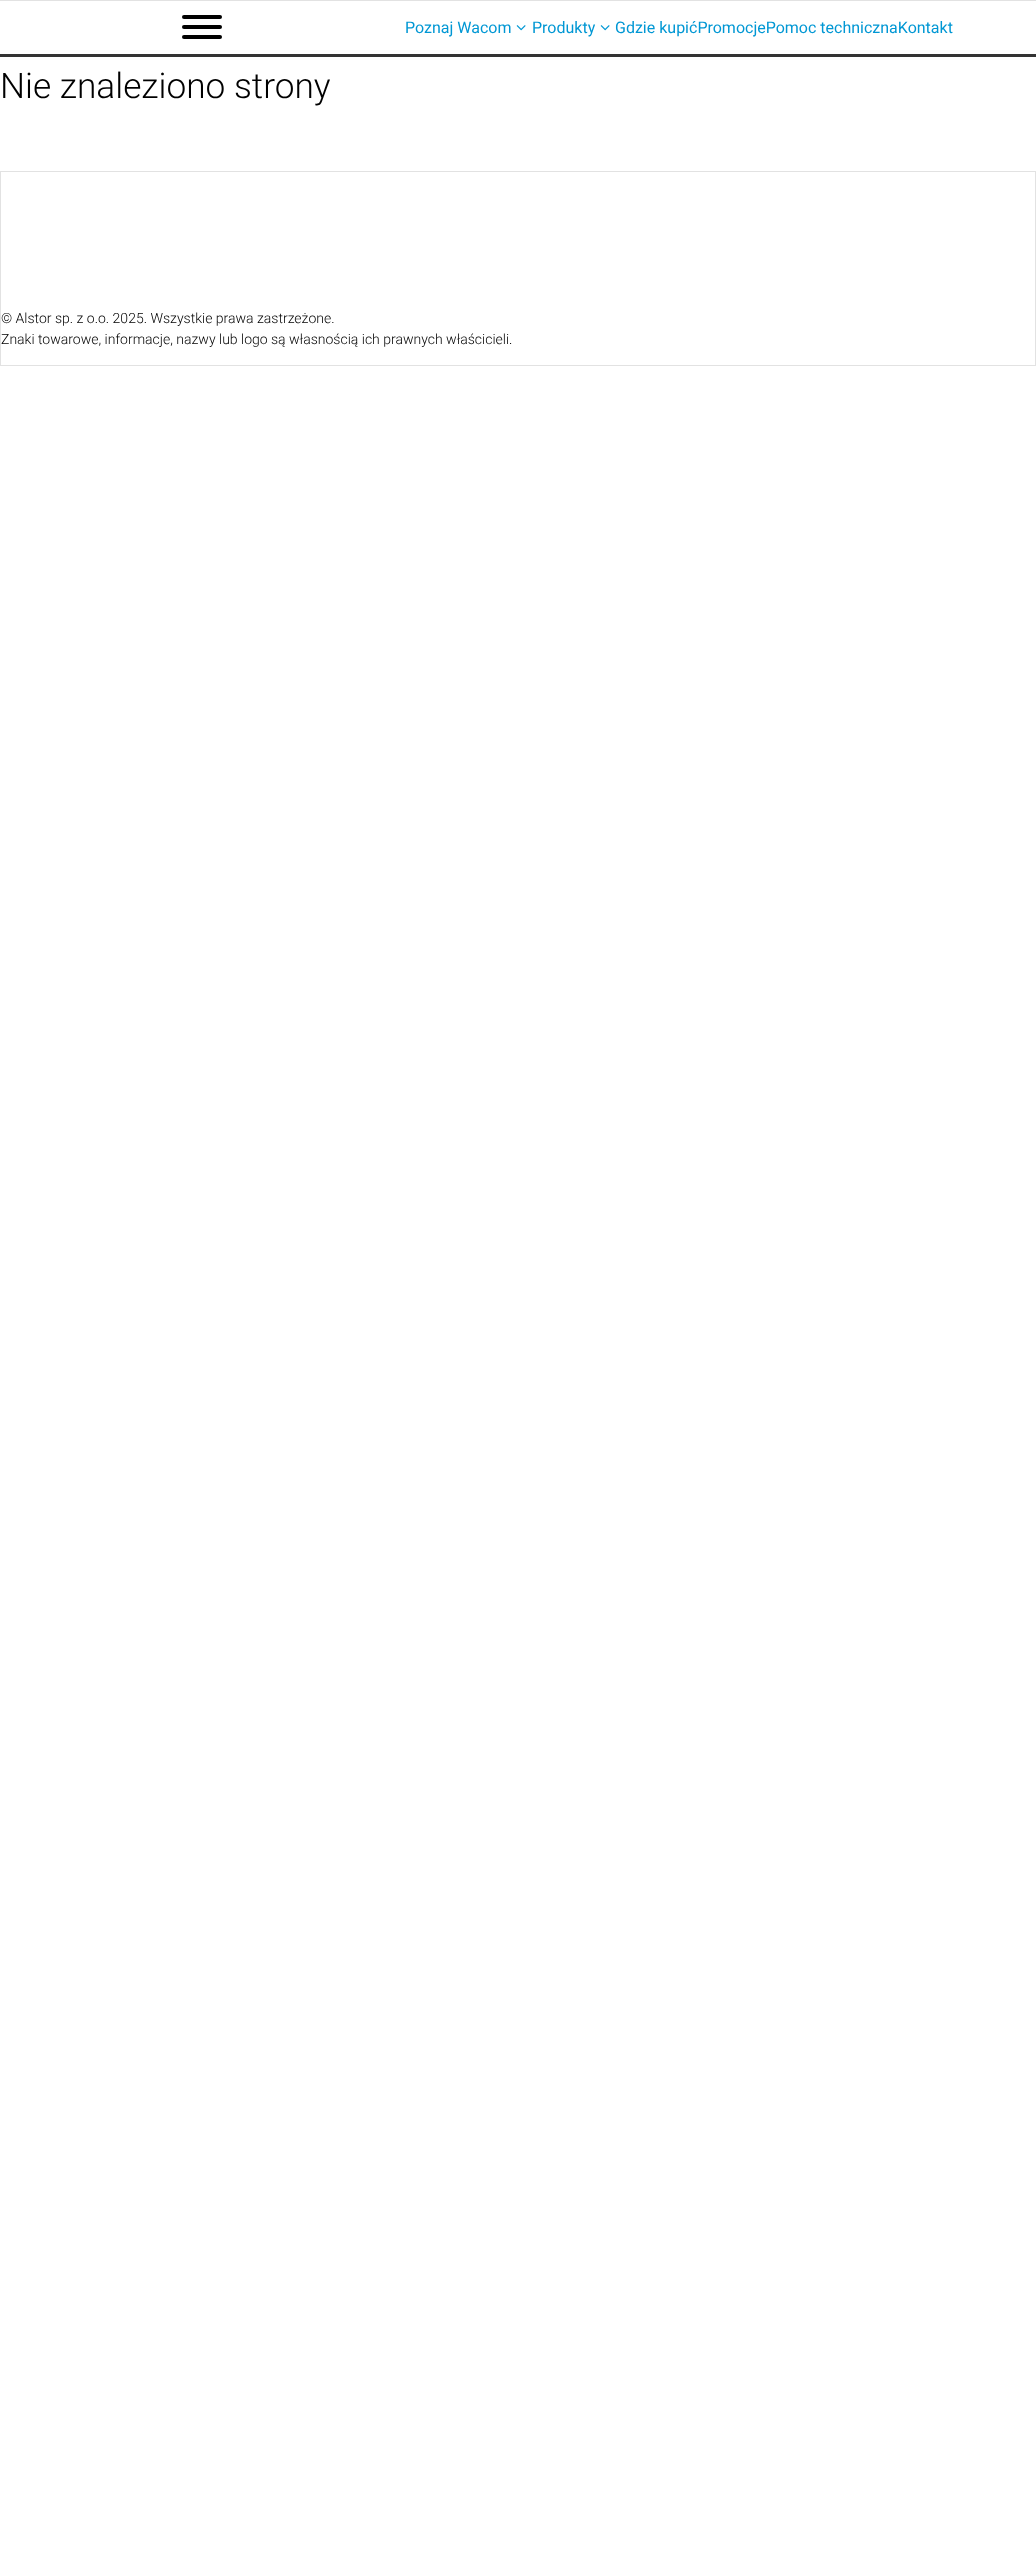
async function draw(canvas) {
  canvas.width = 1036
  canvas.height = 2573
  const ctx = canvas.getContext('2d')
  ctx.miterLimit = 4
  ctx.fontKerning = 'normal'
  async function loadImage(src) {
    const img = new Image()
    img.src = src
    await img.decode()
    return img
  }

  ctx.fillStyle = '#fff'
  ctx.fillRect(0, 0, 1036, 2573)
  ctx.fillStyle = '#e2e2e2'
  ctx.fillRect(0, 0, 1036, 1)
  ctx.fillStyle = '#333'
  ctx.fillRect(0, 54, 1036, 3)
  ctx.fillStyle = '#000'
  ctx.beginPath()
  ctx.roundRect(182, 25, 40, 4, 2)
  ctx.fill()
  ctx.beginPath()
  ctx.roundRect(182, 15, 40, 4, 2)
  ctx.fill()
  ctx.beginPath()
  ctx.roundRect(182, 35, 40, 4, 2)
  ctx.fill()
  ctx.font = '16px Roboto'
  ctx.fillStyle = '#0097d4'
  ctx.fillText('Poznaj Wacom', 405, 33)
  ctx.drawImage(await loadImage('image0.png'), 516, 25, 10, 6)
  ctx.fillText('Produkty', 532, 33)
  ctx.drawImage(await loadImage('image0.png'), 600, 25, 10, 6)
  ctx.fillText('Gdzie kupićPromocjePomoc technicznaKontakt', 615, 33)
  ctx.font = '300 35.25px Roboto'
  ctx.fillStyle = '#000'
  ctx.fillText('Nie znaleziono strony', 0, 98)
  ctx.strokeStyle = '#e2e2e2'
  ctx.strokeRect(0.5, 171.5, 1035, 194)
  ctx.font = '300 14px Roboto'
  ctx.fillText('© Alstor sp. z o.o. 2025. Wszystkie prawa zastrzeżone.', 1, 323)
  ctx.fillText('Znaki towarowe, informacje, nazwy lub logo są własnością ich prawnych właścicieli.', 1, 344)
}

draw(document.querySelector('canvas'))
